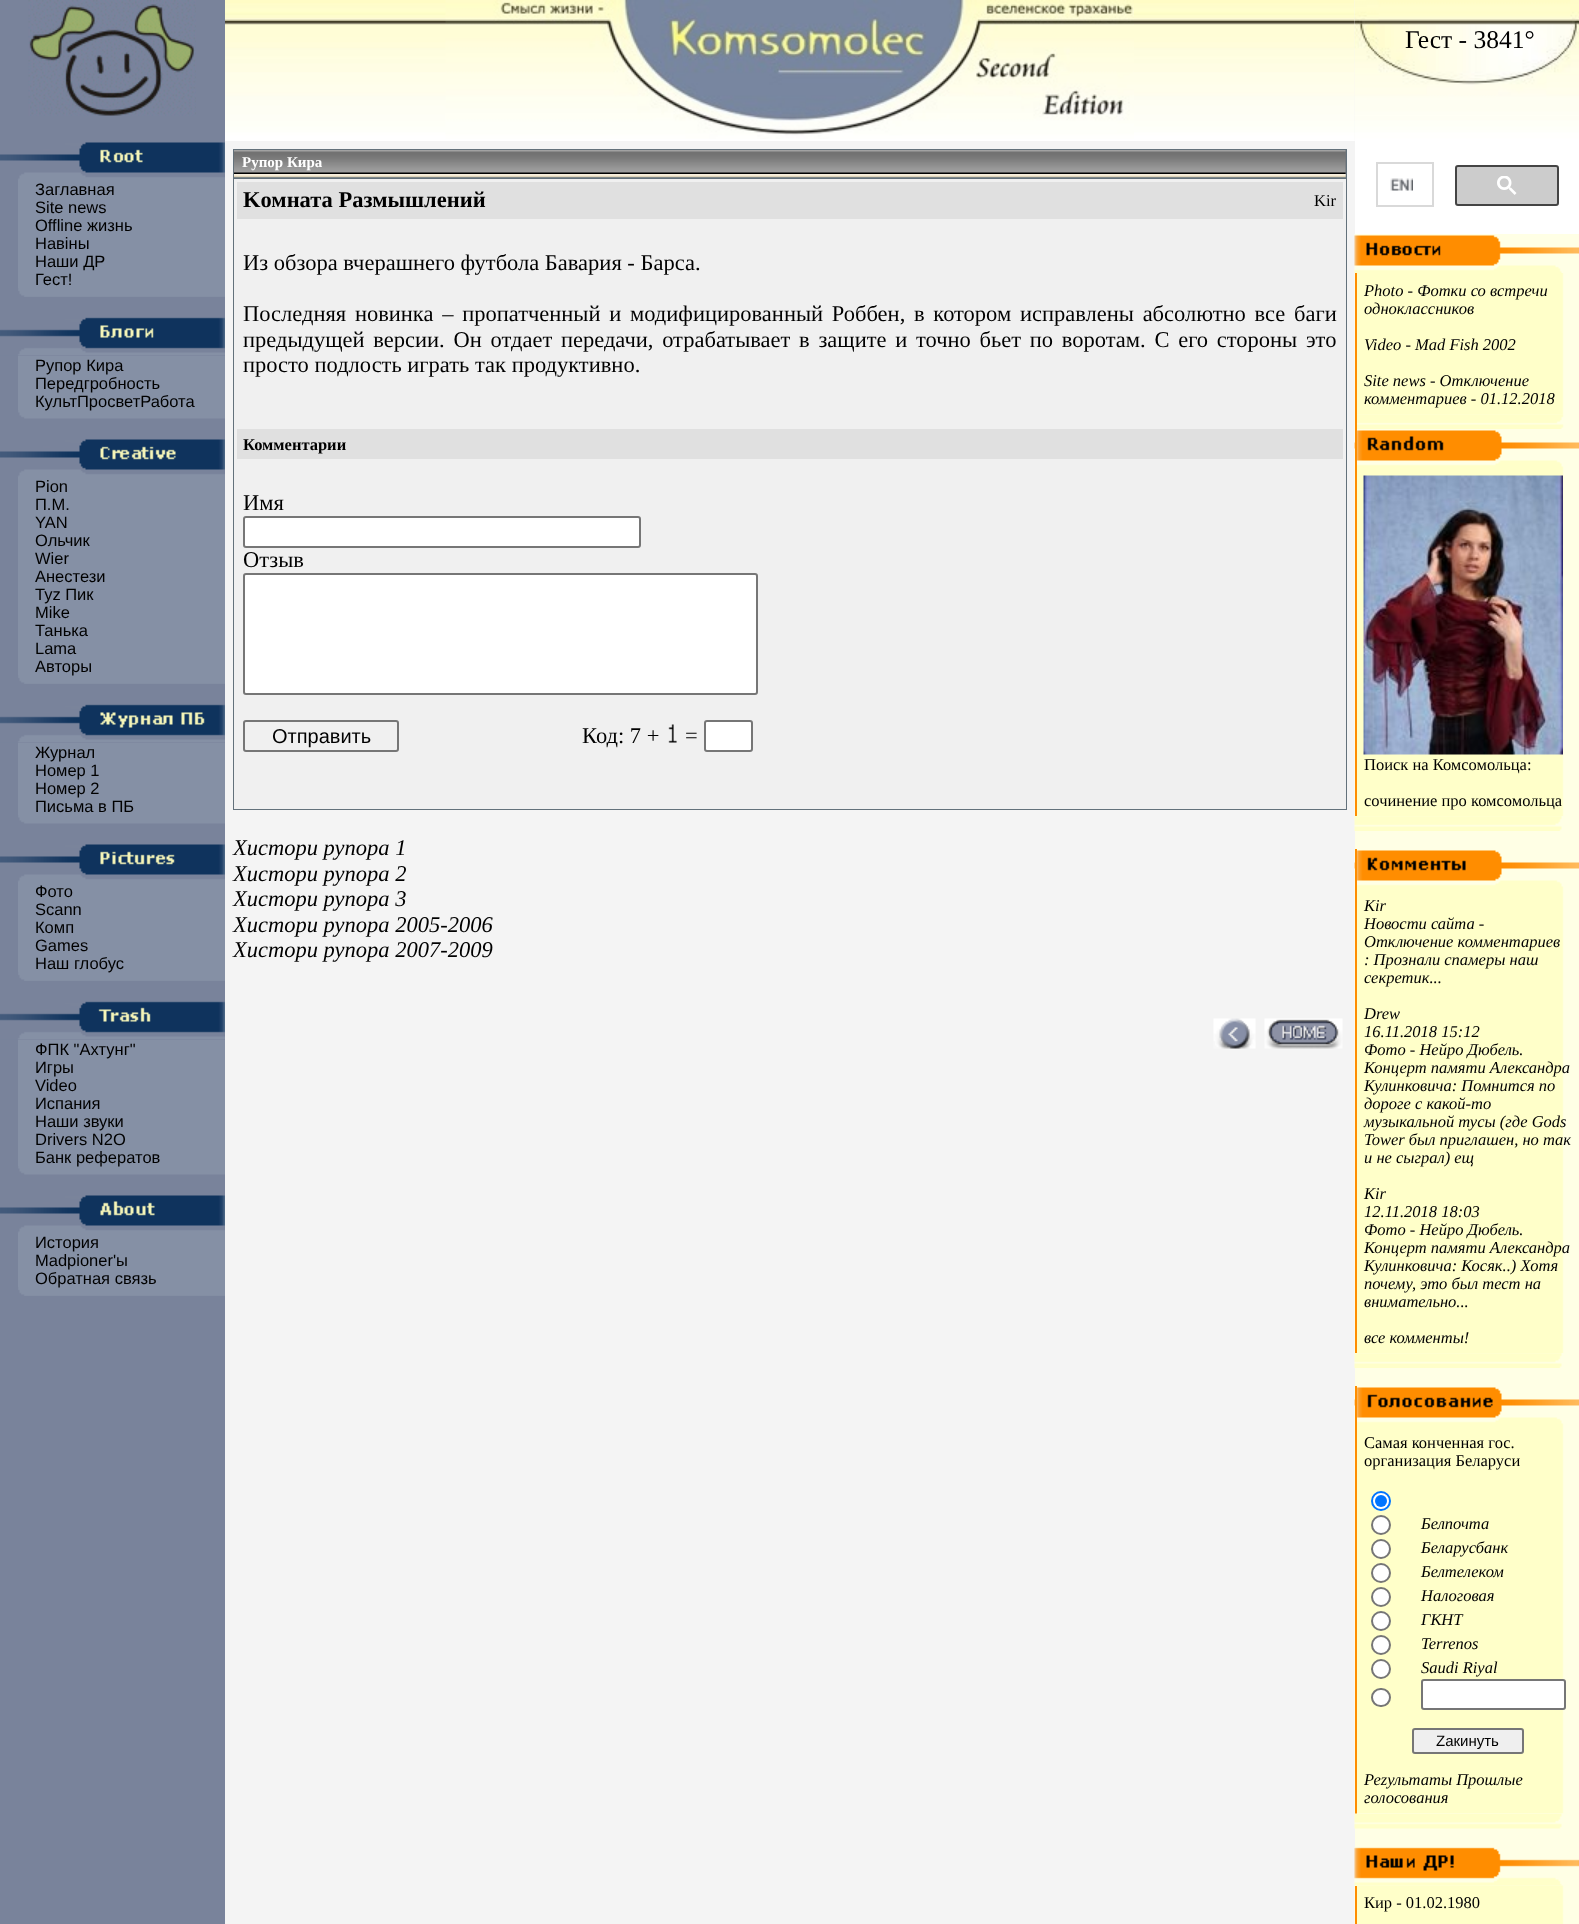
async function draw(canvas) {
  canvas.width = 1579
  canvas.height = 1924
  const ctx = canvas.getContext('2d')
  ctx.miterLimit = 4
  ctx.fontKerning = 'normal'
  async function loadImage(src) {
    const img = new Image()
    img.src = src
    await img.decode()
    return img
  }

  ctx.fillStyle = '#f4f4f4'
  ctx.fillRect(0, 0, 1579, 1924)
  ctx.fillStyle = '#79839b'
  ctx.fillRect(0, 0, 225, 1924)
  ctx.drawImage(await loadImage('image0.png'), 28, 0, 168, 116)
  ctx.drawImage(await loadImage('image1.png'), 225, 0, 1130, 141)
  ctx.drawImage(await loadImage('image2.png'), 445, 0, 689, 139)
  ctx.drawImage(await loadImage('image3.png'), 1354, 0, 225, 141)
  ctx.font = '25.5px Liberation Serif'
  ctx.fillStyle = '#000'
  ctx.fillText('Гест - 3841°', 1405, 48)
  ctx.drawImage(await loadImage('image4.png'), 0, 142, 225, 38)
  ctx.fillStyle = '#8590a5'
  ctx.fillRect(18, 180, 207, 108)
  ctx.font = '16.5px Liberation Sans'
  ctx.fillStyle = '#000'
  ctx.fillText('Заглавная', 35, 195)
  ctx.fillText('Site news', 35, 213)
  ctx.fillText('Offline жизнь', 35, 231)
  ctx.fillText('Навiны', 35, 249)
  ctx.fillText('Наши ДР', 35, 267)
  ctx.fillText('Гест!', 35, 285)
  ctx.drawImage(await loadImage('image5.png'), 18, 288, 207, 9)
  ctx.drawImage(await loadImage('image6.png'), 0, 317, 225, 39)
  ctx.fillStyle = '#8590a5'
  ctx.fillRect(18, 356, 207, 54)
  ctx.fillStyle = '#000'
  ctx.fillText('Рупор Кира', 35, 371)
  ctx.fillText('Передгробность', 35, 389)
  ctx.drawImage(await loadImage('image7.png'), 18, 410, 207, 9)
  ctx.fillText('КультПросветРабота', 35, 407)
  ctx.drawImage(await loadImage('image8.png'), 0, 439, 225, 38)
  ctx.fillStyle = '#8590a5'
  ctx.fillRect(18, 477, 207, 198)
  ctx.fillStyle = '#000'
  ctx.fillText('Pion', 35, 492)
  ctx.fillText('П.М.', 35, 510)
  ctx.fillText('YAN', 35, 528)
  ctx.fillText('Ольчик', 35, 546)
  ctx.fillText('Wier', 35, 564)
  ctx.fillText('Анестези', 35, 582)
  ctx.fillText('Туz Пик', 35, 600)
  ctx.fillText('Mike', 35, 618)
  ctx.fillText('Танька', 35, 636)
  ctx.fillText('Lama', 35, 654)
  ctx.drawImage(await loadImage('image5.png'), 18, 675, 207, 9)
  ctx.fillText('Авторы', 35, 672)
  ctx.drawImage(await loadImage('image9.png'), 0, 704, 225, 39)
  ctx.fillStyle = '#8590a5'
  ctx.fillRect(18, 743, 207, 72)
  ctx.fillStyle = '#000'
  ctx.fillText('Журнал', 35, 758)
  ctx.fillText('Номер 1', 35, 776)
  ctx.fillText('Номер 2', 35, 794)
  ctx.fillText('Письма в ПБ', 35, 812)
  ctx.drawImage(await loadImage('image7.png'), 18, 815, 207, 9)
  ctx.drawImage(await loadImage('image10.png'), 0, 844, 225, 38)
  ctx.fillStyle = '#8590a5'
  ctx.fillRect(18, 882, 207, 90)
  ctx.fillStyle = '#000'
  ctx.fillText('Фото', 35, 897)
  ctx.fillText('Scann', 35, 915)
  ctx.fillText('Комп', 35, 933)
  ctx.fillText('Games', 35, 951)
  ctx.drawImage(await loadImage('image5.png'), 18, 972, 207, 9)
  ctx.fillText('Наш глобус', 35, 969)
  ctx.drawImage(await loadImage('image11.png'), 0, 1001, 225, 39)
  ctx.fillStyle = '#8590a5'
  ctx.fillRect(18, 1040, 207, 126)
  ctx.fillStyle = '#000'
  ctx.fillText('ФПК "Ахтунг"', 35, 1055)
  ctx.fillText('Игры', 35, 1073)
  ctx.fillText('Video', 35, 1091)
  ctx.fillText('Испания', 35, 1109)
  ctx.fillText('Наши звуки', 35, 1127)
  ctx.fillText('Drivers N2O', 35, 1145)
  ctx.drawImage(await loadImage('image7.png'), 18, 1166, 207, 9)
  ctx.fillText('Банк рефератов', 35, 1163)
  ctx.drawImage(await loadImage('image12.png'), 0, 1195, 225, 38)
  ctx.fillStyle = '#8590a5'
  ctx.fillRect(18, 1233, 207, 54)
  ctx.fillStyle = '#000'
  ctx.fillText('История', 35, 1248)
  ctx.fillText('Madpioner\'ы', 35, 1266)
  ctx.drawImage(await loadImage('image5.png'), 18, 1287, 207, 9)
  ctx.fillText('Обратная связь', 35, 1284)
  ctx.fillStyle = '#63717b'
  ctx.fillRect(233, 149, 1114, 661)
  ctx.drawImage(await loadImage('image13.png'), 234, 150, 96, 24)
  ctx.font = 'bold 15px Liberation Serif'
  ctx.fillStyle = '#fff'
  ctx.fillText('Рупор Кира', 242, 167)
  ctx.drawImage(await loadImage('image14.png'), 330, 150, 1011, 24)
  ctx.drawImage(await loadImage('image15.png'), 1341, 150, 5, 24)
  ctx.drawImage(await loadImage('image16.png'), 234, 174, 1112, 4)
  ctx.drawImage(await loadImage('image17.png'), 1345, 174, 1, 4)
  ctx.fillStyle = '#f0f0f0'
  ctx.fillRect(234, 179, 1112, 630)
  ctx.fillStyle = '#e0e0e0'
  ctx.fillRect(237, 182, 1106, 37)
  ctx.font = 'bold 22.5px Liberation Serif'
  ctx.fillStyle = '#000'
  ctx.fillText('Kомната Размышлений', 243, 207)
  ctx.font = '16.5px Liberation Serif'
  ctx.fillText('Kir', 1314, 206)
  ctx.font = '22.5px Liberation Serif'
  ctx.fillText('Из обзора вчерашнего футбола Бавария - Барса.', 243, 270)
  ctx.wordSpacing = '3.1px'
  ctx.fillText('Последняя новинка – пропатченный и модифицированный Роббен, в котором исправлены абсолютно все баги', 243, 321)
  ctx.fillText('предыдущей версии. Он отдает передачи, отрабатывает в защите и точно бьет по воротам. С его стороны это', 243, 347)
  ctx.wordSpacing = '0px'
  ctx.fillText('просто подлость играть так продуктивно.', 243, 372)
  ctx.fillStyle = '#e0e0e0'
  ctx.fillRect(237, 429, 1106, 30)
  ctx.font = 'bold 16.5px Liberation Serif'
  ctx.fillStyle = '#000'
  ctx.fillText('Комментарии', 243, 450)
  ctx.font = '22.5px Liberation Serif'
  ctx.fillText('Имя', 243, 510)
  ctx.fillStyle = '#fff'
  ctx.beginPath()
  ctx.roundRect(244, 517, 396, 30, 2)
  ctx.fill()
  ctx.strokeStyle = '#767676'
  ctx.lineWidth = 2
  ctx.stroke()
  ctx.fillStyle = '#000'
  ctx.fillText('Отзыв', 243, 567)
  ctx.fillStyle = '#fff'
  ctx.beginPath()
  ctx.roundRect(244, 574, 513, 120, 2)
  ctx.fill()
  ctx.stroke()
  ctx.beginPath()
  ctx.roundRect(244, 721, 154, 30, 2)
  ctx.stroke()
  ctx.font = '20px Liberation Sans'
  ctx.fillStyle = '#000'
  ctx.fillText('Отправить', 272, 743)
  ctx.font = '22.5px Liberation Serif'
  ctx.fillText('Код: 7 +', 582, 743)
  ctx.drawImage(await loadImage('image18.png'), 668, 724, 9, 19)
  ctx.fillText('=', 685, 743)
  ctx.fillStyle = '#fff'
  ctx.beginPath()
  ctx.roundRect(705, 721, 47, 30, 2)
  ctx.fill()
  ctx.stroke()
  ctx.font = 'italic 22.5px Liberation Serif'
  ctx.fillStyle = '#000'
  ctx.fillText('Хистори рупора 1', 233, 855)
  ctx.fillText('Хистори рупора 2', 233, 881)
  ctx.fillText('Хистори рупора 3', 233, 906)
  ctx.fillText('Хистори рупора 2005-2006', 233, 932)
  ctx.fillText('Хистори рупора 2007-2009', 233, 957)
  ctx.drawImage(await loadImage('image19.png'), 1213, 1018, 43, 31)
  ctx.drawImage(await loadImage('image20.png'), 1264, 1018, 79, 31)
  ctx.fillStyle = '#ffffe5'
  ctx.fillRect(1355, 273, 224, 1651)
  ctx.fillStyle = '#fff'
  ctx.fillRect(1355, 141, 224, 93)
  ctx.strokeStyle = '#d9d9d9'
  ctx.strokeRect(1377, 163, 56, 43)
  ctx.drawImage(await loadImage('image21.png'), 1390, 178, 23, 13)
  ctx.fillStyle = '#ccc'
  ctx.beginPath()
  ctx.roundRect(1456, 166, 102, 39, 2)
  ctx.fill()
  ctx.strokeStyle = '#444'
  ctx.stroke()
  ctx.drawImage(await loadImage('image22.png'), 1497, 176, 20, 19)
  ctx.drawImage(await loadImage('image23.png'), 1354, 234, 225, 39)
  ctx.drawImage(await loadImage('image24.png'), 1354, 273, 210, 141)
  ctx.fillStyle = '#ff8d00'
  ctx.fillRect(1355, 273, 2, 141)
  ctx.font = 'italic 16.5px Liberation Serif'
  ctx.fillStyle = '#000'
  ctx.fillText('Photo - Фотки со встречи', 1364, 296)
  ctx.fillText('одноклассников', 1364, 314)
  ctx.fillText('Video - Mad Fish 2002', 1364, 350)
  ctx.fillText('Site news - Отключение', 1364, 386)
  ctx.fillText('комментариев - 01.12.2018', 1364, 404)
  ctx.drawImage(await loadImage('image25.png'), 1354, 414, 210, 15)
  ctx.fillStyle = '#ff8d00'
  ctx.fillRect(1355, 414, 2, 15)
  ctx.drawImage(await loadImage('image26.png'), 1354, 429, 225, 39)
  ctx.fillRect(1355, 429, 2, 39)
  ctx.drawImage(await loadImage('image27.png'), 1354, 468, 210, 348)
  ctx.fillRect(1355, 468, 2, 348)
  ctx.drawImage(await loadImage('image28.png'), 1363, 475, 200, 280)
  ctx.font = '16.5px Liberation Serif'
  ctx.fillStyle = '#000'
  ctx.fillText('Поиск на Комсомольца:', 1364, 770)
  ctx.fillText('сочинение про комсомольца', 1364, 806)
  ctx.drawImage(await loadImage('image29.png'), 1354, 816, 208, 15)
  ctx.drawImage(await loadImage('image30.png'), 1354, 849, 225, 39)
  ctx.fillStyle = '#ff8d00'
  ctx.fillRect(1355, 849, 2, 39)
  ctx.drawImage(await loadImage('image31.png'), 1354, 888, 210, 465)
  ctx.fillRect(1355, 888, 2, 465)
  ctx.font = 'italic 16.5px Liberation Serif'
  ctx.fillStyle = '#000'
  ctx.fillText('Kir', 1364, 911)
  ctx.fillText('Новости сайта -', 1364, 929)
  ctx.fillText('Отключение комментариев', 1364, 947)
  ctx.fillText(': Прознали спамеры наш', 1364, 965)
  ctx.fillText('секретик...', 1364, 983)
  ctx.fillText('Drew', 1364, 1019)
  ctx.fillText('16.11.2018 15:12', 1364, 1037)
  ctx.fillText('Фото - Нейро Дюбель.', 1364, 1055)
  ctx.fillText('Концерт памяти Александра', 1364, 1073)
  ctx.fillText('Кулинковича: Помнится по', 1364, 1091)
  ctx.fillText('дороге с какой-то', 1364, 1109)
  ctx.fillText('музыкальной тусы (где Gods', 1364, 1127)
  ctx.fillText('Tower был приглашен, но так', 1364, 1145)
  ctx.fillText('и не сыграл) ещ', 1364, 1163)
  ctx.fillText('Kir', 1364, 1199)
  ctx.fillText('12.11.2018 18:03', 1364, 1217)
  ctx.fillText('Фото - Нейро Дюбель.', 1364, 1235)
  ctx.fillText('Концерт памяти Александра', 1364, 1253)
  ctx.fillText('Кулинковича: Косяк..) Хотя', 1364, 1271)
  ctx.fillText('почему, это был тест на', 1364, 1289)
  ctx.fillText('внимательно...', 1364, 1307)
  ctx.fillText('все комменты!', 1364, 1343)
  ctx.drawImage(await loadImage('image29.png'), 1354, 1353, 208, 15)
  ctx.drawImage(await loadImage('image32.png'), 1354, 1386, 225, 39)
  ctx.fillStyle = '#ff8d00'
  ctx.fillRect(1355, 1386, 2, 39)
  ctx.drawImage(await loadImage('image33.png'), 1354, 1425, 210, 389)
  ctx.fillRect(1355, 1425, 2, 389)
  ctx.font = '16.5px Liberation Serif'
  ctx.fillStyle = '#000'
  ctx.fillText('Самая конченная гос.', 1364, 1448)
  ctx.fillText('организация Беларуси', 1364, 1466)
  ctx.fillStyle = '#fff'
  ctx.beginPath()
  ctx.arc(1381, 1501, 9, 0, 2 * Math.PI)
  ctx.fill()
  ctx.strokeStyle = '#0075ff'
  ctx.stroke()
  ctx.fillStyle = '#0075ff'
  ctx.beginPath()
  ctx.arc(1381, 1501, 6, 0, 2 * Math.PI)
  ctx.fill()
  ctx.fillStyle = '#fff'
  ctx.beginPath()
  ctx.arc(1381, 1525, 9, 0, 2 * Math.PI)
  ctx.fill()
  ctx.strokeStyle = '#767676'
  ctx.stroke()
  ctx.font = 'italic 16.5px Liberation Serif'
  ctx.fillStyle = '#000'
  ctx.fillText('Белпочта', 1421, 1529)
  ctx.fillStyle = '#fff'
  ctx.beginPath()
  ctx.arc(1381, 1549, 9, 0, 2 * Math.PI)
  ctx.fill()
  ctx.stroke()
  ctx.fillStyle = '#000'
  ctx.fillText('Беларусбанк', 1421, 1553)
  ctx.fillStyle = '#fff'
  ctx.beginPath()
  ctx.arc(1381, 1573, 9, 0, 2 * Math.PI)
  ctx.fill()
  ctx.stroke()
  ctx.fillStyle = '#000'
  ctx.fillText('Белтелеком', 1421, 1577)
  ctx.fillStyle = '#fff'
  ctx.beginPath()
  ctx.arc(1381, 1597, 9, 0, 2 * Math.PI)
  ctx.fill()
  ctx.stroke()
  ctx.fillStyle = '#000'
  ctx.fillText('Налоговая', 1421, 1601)
  ctx.fillStyle = '#fff'
  ctx.beginPath()
  ctx.arc(1381, 1621, 9, 0, 2 * Math.PI)
  ctx.fill()
  ctx.stroke()
  ctx.fillStyle = '#000'
  ctx.fillText('ГКНТ', 1421, 1625)
  ctx.fillStyle = '#fff'
  ctx.beginPath()
  ctx.arc(1381, 1645, 9, 0, 2 * Math.PI)
  ctx.fill()
  ctx.stroke()
  ctx.fillStyle = '#000'
  ctx.fillText('Terrenos', 1421, 1649)
  ctx.fillStyle = '#fff'
  ctx.beginPath()
  ctx.arc(1381, 1669, 9, 0, 2 * Math.PI)
  ctx.fill()
  ctx.stroke()
  ctx.fillStyle = '#000'
  ctx.fillText('Saudi Riyal', 1421, 1673)
  ctx.fillStyle = '#fff'
  ctx.beginPath()
  ctx.roundRect(1372, 1689, 18, 17, 8.5)
  ctx.fill()
  ctx.stroke()
  ctx.beginPath()
  ctx.roundRect(1422, 1680, 143, 29, 2)
  ctx.fill()
  ctx.stroke()
  ctx.fillStyle = '#efefef'
  ctx.beginPath()
  ctx.roundRect(1413, 1729, 110, 24, 2)
  ctx.fill()
  ctx.stroke()
  ctx.font = '15px Liberation Sans'
  ctx.fillStyle = '#000'
  ctx.fillText('Zакинуть', 1436, 1746)
  ctx.font = 'italic 16.5px Liberation Serif'
  ctx.fillText('Реzультаты Прошлые', 1364, 1785)
  ctx.fillText('голосования', 1364, 1803)
  ctx.drawImage(await loadImage('image34.png'), 1354, 1813, 209, 16)
  ctx.drawImage(await loadImage('image35.png'), 1354, 1847, 225, 39)
  ctx.drawImage(await loadImage('image36.png'), 1354, 1885, 210, 39)
  ctx.fillStyle = '#ff8d00'
  ctx.fillRect(1355, 1886, 2, 38)
  ctx.font = '16.5px Liberation Serif'
  ctx.fillStyle = '#000'
  ctx.fillText('Кир - 01.02.1980', 1364, 1908)
}

draw(document.querySelector('canvas'))
